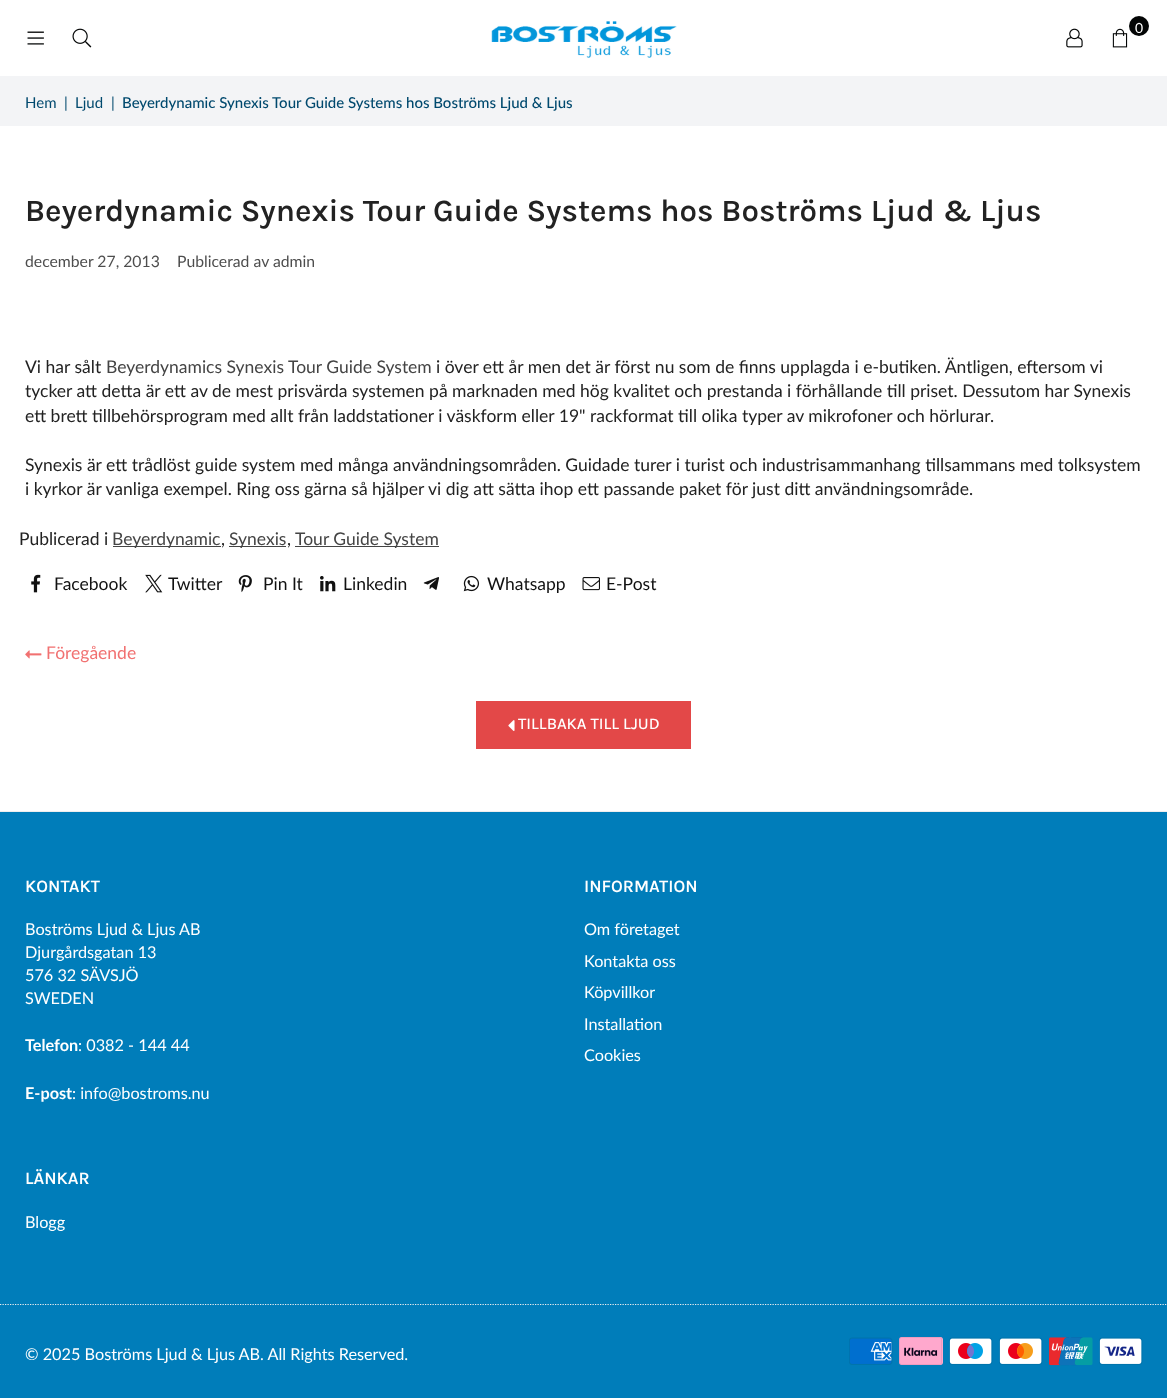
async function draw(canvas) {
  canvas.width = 1167
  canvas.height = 1398
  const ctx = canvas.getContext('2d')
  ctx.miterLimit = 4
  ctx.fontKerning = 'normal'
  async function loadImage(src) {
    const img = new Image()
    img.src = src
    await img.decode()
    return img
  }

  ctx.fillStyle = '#fff'
  ctx.fillRect(0, 0, 1167, 1398)
  ctx.drawImage(await loadImage('image0.png'), 27, 31, 17, 14)
  ctx.drawImage(await loadImage('image1.png'), 72, 28, 20, 20)
  ctx.drawImage(await loadImage('image2.png'), 491, 21, 186, 37)
  ctx.drawImage(await loadImage('image3.png'), 1066, 28, 17, 20)
  ctx.drawImage(await loadImage('image4.png'), 1112, 28, 16, 20)
  ctx.fillStyle = '#030505'
  ctx.beginPath()
  ctx.arc(1139, 26, 10, 0, 2 * Math.PI)
  ctx.fill()
  ctx.font = '14px Lato'
  ctx.fillStyle = '#fff'
  ctx.fillText('0', 1135, 33)
  ctx.fillStyle = '#f3f4f6'
  ctx.fillRect(0, 76, 1167, 50)
  ctx.font = '15px Lato'
  ctx.fillStyle = '#00496e'
  ctx.fillText('Hem', 25, 108)
  ctx.fillText('|', 64, 108)
  ctx.fillText('Ljud', 75, 108)
  ctx.fillText('|', 111, 108)
  ctx.font = '500 15px Lato'
  ctx.fillText('Beyerdynamic Synexis Tour Guide Systems hos Boströms Ljud & Ljus', 122, 108)
  ctx.font = '600 31.25px Karla'
  ctx.fillStyle = '#222'
  ctx.fillText('Beyerdynamic Synexis Tour Guide Systems hos Boströms Ljud & Ljus', 25, 221)
  ctx.font = '15.75px Lato'
  ctx.fillStyle = '#4e4e4e'
  ctx.fillText('december 27, 2013', 25, 267)
  ctx.fillText('Publicerad av admin', 177, 267)
  ctx.font = '17.5px Lato'
  ctx.fillStyle = '#222'
  ctx.fillText('Vi har sålt', 25, 373)
  ctx.fillStyle = '#444'
  ctx.fillText('Beyerdynamics Synexis Tour Guide System', 106, 373)
  ctx.fillStyle = '#222'
  ctx.fillText('i över ett år men det är först nu som de finns upplagda i e-butiken. Äntligen, eftersom vi', 436, 373)
  ctx.fillText('tycker att detta är ett av de mest prisvärda systemen på marknaden med hög kvalitet och prestanda i förhållande till priset. Dessutom har Synexis', 25, 397)
  ctx.fillText('ett brett tillbehörsprogram med allt från laddstationer i väskform eller 19" rackformat till olika typer av mikrofoner och hörlurar.', 25, 422)
  ctx.fillText('Synexis är ett trådlöst guide system med många användningsområden. Guidade turer i turist och industrisammanhang tillsammans med tolksystem', 25, 471)
  ctx.fillText('i kyrkor är vanliga exempel. Ring oss gärna så hjälper vi dig att sätta ihop ett passande paket för just ditt användningsområde.', 25, 495)
  ctx.fillText('Publicerad i', 19, 545)
  ctx.fillStyle = '#444'
  ctx.fillRect(113, 546, 108, 1)
  ctx.fillText('Beyerdynamic', 112, 545)
  ctx.fillStyle = '#222'
  ctx.fillText(',', 221, 545)
  ctx.fillStyle = '#444'
  ctx.fillRect(229, 546, 57, 1)
  ctx.fillText('Synexis', 229, 545)
  ctx.fillStyle = '#222'
  ctx.fillText(',', 287, 545)
  ctx.fillStyle = '#444'
  ctx.fillRect(295, 546, 144, 1)
  ctx.fillText('Tour Guide System', 295, 545)
  ctx.drawImage(await loadImage('image5.png'), 31, 574, 10, 19)
  ctx.fillStyle = '#111'
  ctx.fillText('Facebook', 54, 590)
  ctx.drawImage(await loadImage('image6.png'), 145, 574, 18, 19)
  ctx.fillText('Twitter', 168, 590)
  ctx.drawImage(await loadImage('image7.png'), 238, 575, 14, 18)
  ctx.fillText('Pin It', 263, 590)
  ctx.drawImage(await loadImage('image8.png'), 320, 576, 16, 16)
  ctx.fillText('Linkedin', 343, 590)
  ctx.drawImage(await loadImage('image9.png'), 423, 577, 16, 13)
  ctx.drawImage(await loadImage('image10.png'), 463, 575, 17, 17)
  ctx.fillText('Whatsapp', 487, 590)
  ctx.drawImage(await loadImage('image11.png'), 582, 577, 18, 14)
  ctx.fillText('E-Post', 606, 590)
  ctx.drawImage(await loadImage('image12.png'), 25, 650, 17, 9)
  ctx.fillStyle = '#f17171'
  ctx.fillText('Föregående', 46, 659)
  ctx.fillStyle = '#e34848'
  ctx.fillRect(476, 701, 215, 48)
  ctx.drawImage(await loadImage('image13.png'), 508, 720, 7, 11)
  ctx.font = '500 16.25px Karla'
  ctx.fillStyle = '#fff'
  ctx.fillText('TILLBAKA TILL LJUD', 518, 729)
  ctx.fillStyle = '#007dba'
  ctx.fillRect(0, 812, 1167, 586)
  ctx.fillStyle = '#eee'
  ctx.fillRect(0, 811, 1167, 1)
  ctx.font = '600 17.5px Karla'
  ctx.fillStyle = '#fff'
  ctx.fillText('KONTAKT', 25, 892)
  ctx.font = '16.25px Lato'
  ctx.fillText('Boströms Ljud & Ljus AB', 25, 935)
  ctx.fillText('Djurgårdsgatan 13', 25, 958)
  ctx.fillText('576 32 SÄVSJÖ', 25, 981)
  ctx.fillText('SWEDEN', 25, 1004)
  ctx.font = 'bold 16.25px Lato'
  ctx.fillText('Telefon', 25, 1051)
  ctx.font = '16.25px Lato'
  ctx.fillText(': 0382 - 144 44', 78, 1051)
  ctx.font = 'bold 16.25px Lato'
  ctx.fillText('E-post', 25, 1099)
  ctx.font = '16.25px Lato'
  ctx.fillText(': info@bostroms.nu', 72, 1099)
  ctx.font = '600 17.5px Karla'
  ctx.fillText('INFORMATION', 584, 892)
  ctx.font = '16.25px Lato'
  ctx.fillText('Om företaget', 584, 935)
  ctx.fillText('Kontakta oss', 584, 967)
  ctx.fillText('Köpvillkor', 584, 998)
  ctx.fillText('Installation', 584, 1030)
  ctx.fillText('Cookies', 584, 1061)
  ctx.font = '600 17.5px Karla'
  ctx.fillText('LÄNKAR', 25, 1184)
  ctx.font = '16.25px Lato'
  ctx.fillText('Blogg', 25, 1228)
  ctx.beginPath()
  ctx.moveTo(0, 1304.5)
  ctx.lineTo(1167.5, 1304.5)
  ctx.strokeStyle = '#eee'
  ctx.lineWidth = 1.2
  ctx.setLineDash([1.25, 1.25])
  ctx.stroke()
  ctx.fillText('© 2025 Boströms Ljud & Ljus AB. All Rights Reserved.', 25, 1360)
  ctx.drawImage(await loadImage('image14.png'), 849, 1337, 44, 28)
  ctx.drawImage(await loadImage('image15.png'), 899, 1337, 44, 28)
  ctx.drawImage(await loadImage('image16.png'), 949, 1337, 44, 28)
  ctx.drawImage(await loadImage('image17.png'), 999, 1337, 44, 28)
  ctx.drawImage(await loadImage('image18.png'), 1049, 1337, 44, 29)
  ctx.drawImage(await loadImage('image19.png'), 1099, 1337, 44, 28)
}

draw(document.querySelector('canvas'))
